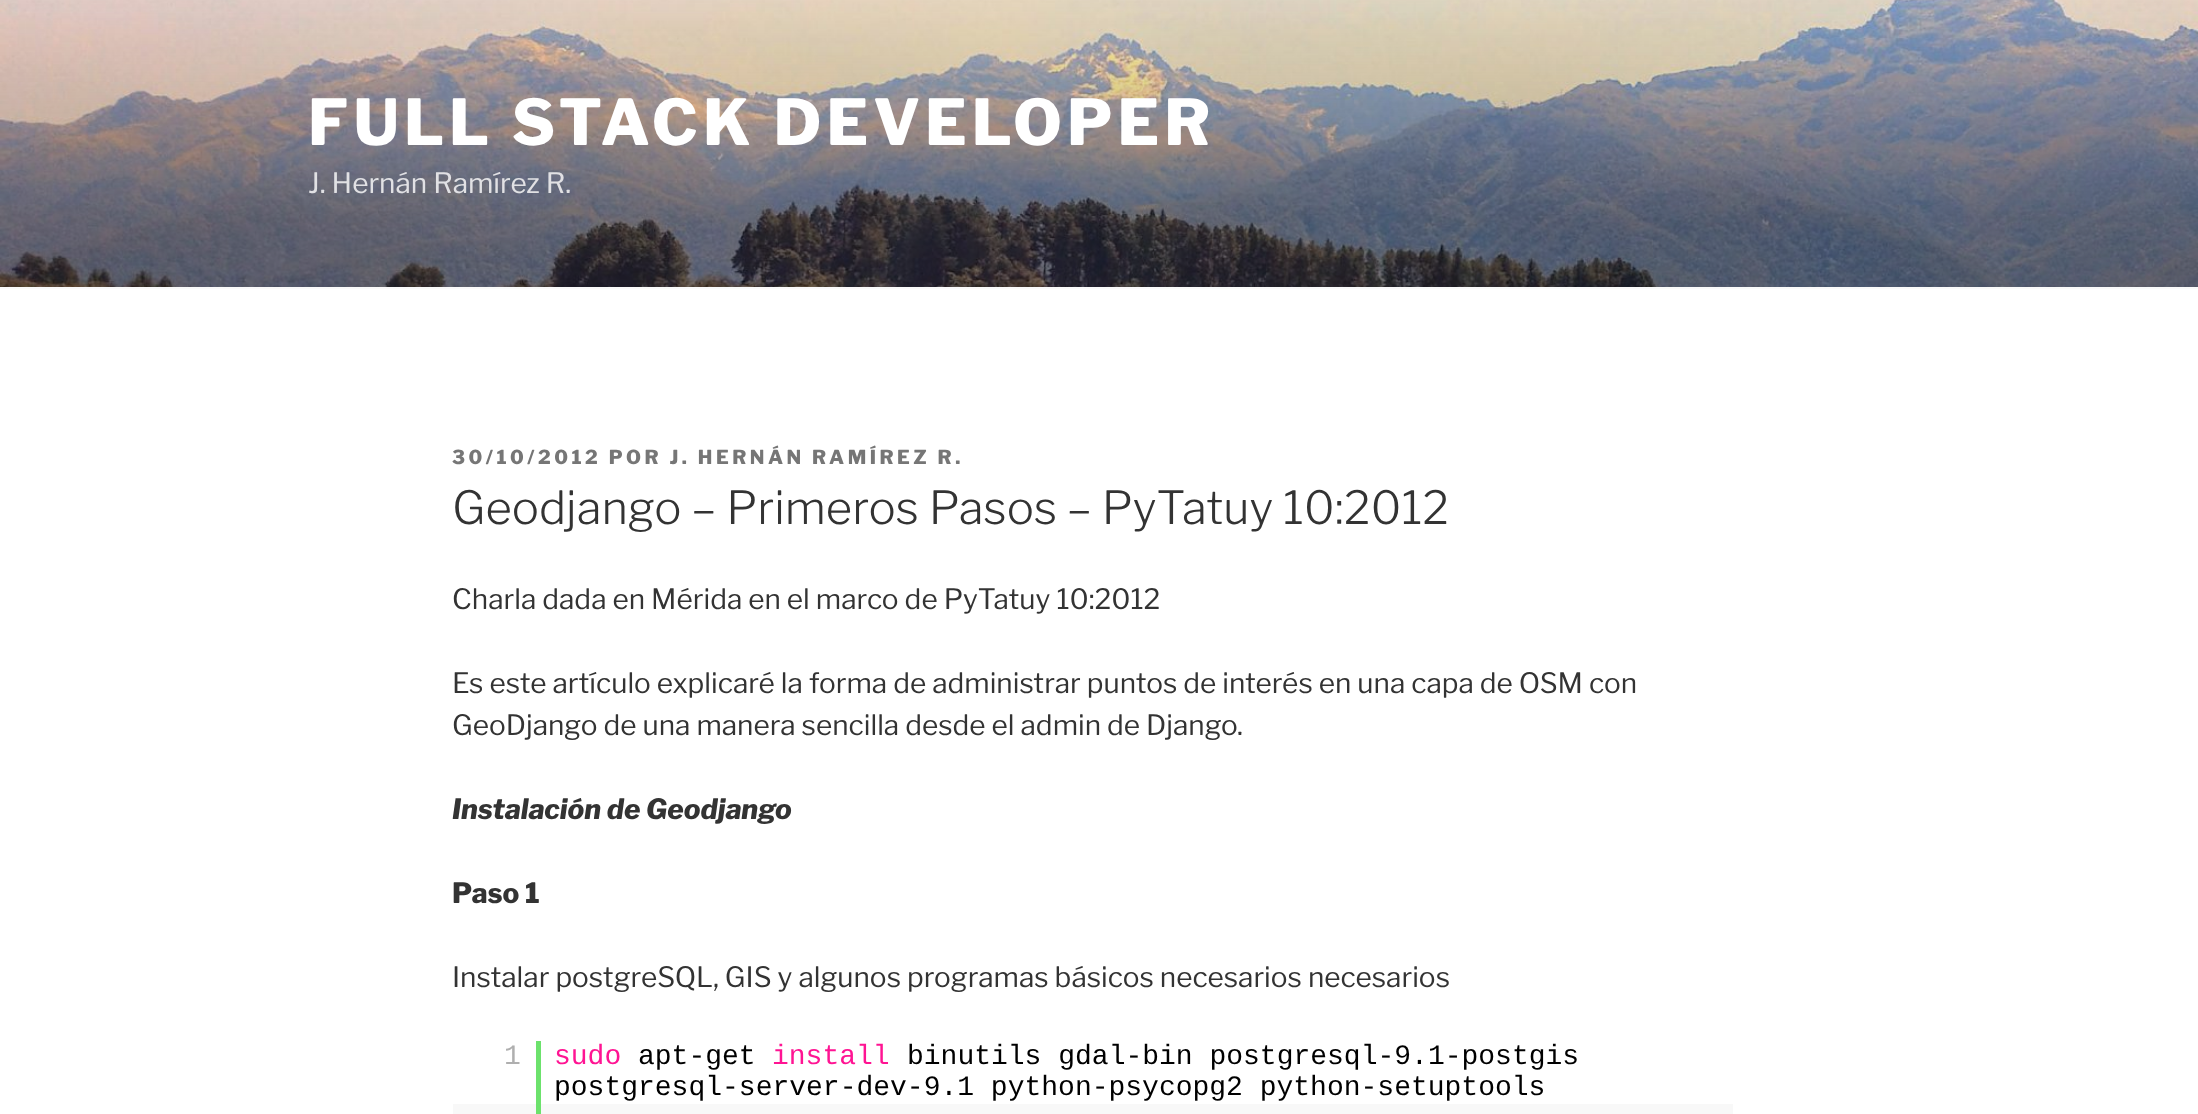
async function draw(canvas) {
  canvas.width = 2198
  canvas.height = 1114
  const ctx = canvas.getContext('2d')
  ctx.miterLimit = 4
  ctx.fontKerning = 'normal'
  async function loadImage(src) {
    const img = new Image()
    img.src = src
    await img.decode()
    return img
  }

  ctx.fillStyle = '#fff'
  ctx.fillRect(0, 0, 2198, 1114)
  ctx.fillStyle = '#fafafa'
  ctx.fillRect(0, 287, 2198, 2)
  ctx.drawImage(await loadImage('image0.png'), 0, 0, 2198, 287)
  ctx.letterSpacing = '5px'
  ctx.font = '800 63px Libre Franklin'
  ctx.fillStyle = '#fff'
  ctx.fillText('FULL STACK DEVELOPER', 308, 145)
  ctx.letterSpacing = '0px'
  ctx.font = '28px Libre Franklin'
  ctx.fillStyle = '#e1e1e4'
  ctx.fillText('J. Hernán Ramírez R.', 308, 193)
  ctx.letterSpacing = '3.5px'
  ctx.font = '800 19.25px Libre Franklin'
  ctx.fillStyle = '#767676'
  ctx.fillText('30/10/2012 POR J. HERNÁN RAMÍREZ R.', 452, 464)
  ctx.letterSpacing = '0px'
  ctx.font = '300 45.5px Libre Franklin'
  ctx.fillStyle = '#333'
  ctx.fillText('Geodjango – Primeros Pasos – PyTatuy 10:2012', 452, 524)
  ctx.font = '28px Libre Franklin'
  ctx.fillText('Charla dada en Mérida en el marco de PyTatuy 10:2012', 452, 609)
  ctx.fillText('Es este artículo explicaré la forma de administrar puntos de interés en una capa de OSM con', 452, 693)
  ctx.fillText('GeoDjango de una manera sencilla desde el admin de Django.', 452, 735)
  ctx.font = 'italic 800 28px Libre Franklin'
  ctx.fillText('Instalación de Geodjango', 452, 819)
  ctx.font = '800 28px Libre Franklin'
  ctx.fillText('Paso 1', 452, 903)
  ctx.font = '28px Libre Franklin'
  ctx.fillText('Instalar postgreSQL, GIS y algunos programas básicos necesarios necesarios', 452, 987)
  ctx.font = '28px Liberation Mono'
  ctx.fillStyle = '#afafaf'
  ctx.fillText('1', 504, 1064)
  ctx.fillStyle = '#6ce26c'
  ctx.fillRect(536, 1041, 5, 67)
  ctx.fillStyle = '#ff1493'
  ctx.fillText('sudo', 554, 1064)
  ctx.fillStyle = '#000'
  ctx.fillText('apt-get', 638, 1064)
  ctx.fillStyle = '#ff1493'
  ctx.fillText('install', 772, 1064)
  ctx.fillStyle = '#000'
  ctx.fillText('binutils gdal-bin postgresql-9.1-postgis', 907, 1064)
  ctx.fillText('postgresql-server-dev-9.1 python-psycopg2 python-setuptools', 554, 1095)
  ctx.fillStyle = '#f8f8f8'
  ctx.fillRect(453, 1104, 1280, 10)
  ctx.fillStyle = '#6ce26c'
  ctx.fillRect(536, 1103, 5, 11)
}

draw(document.querySelector('canvas'))
